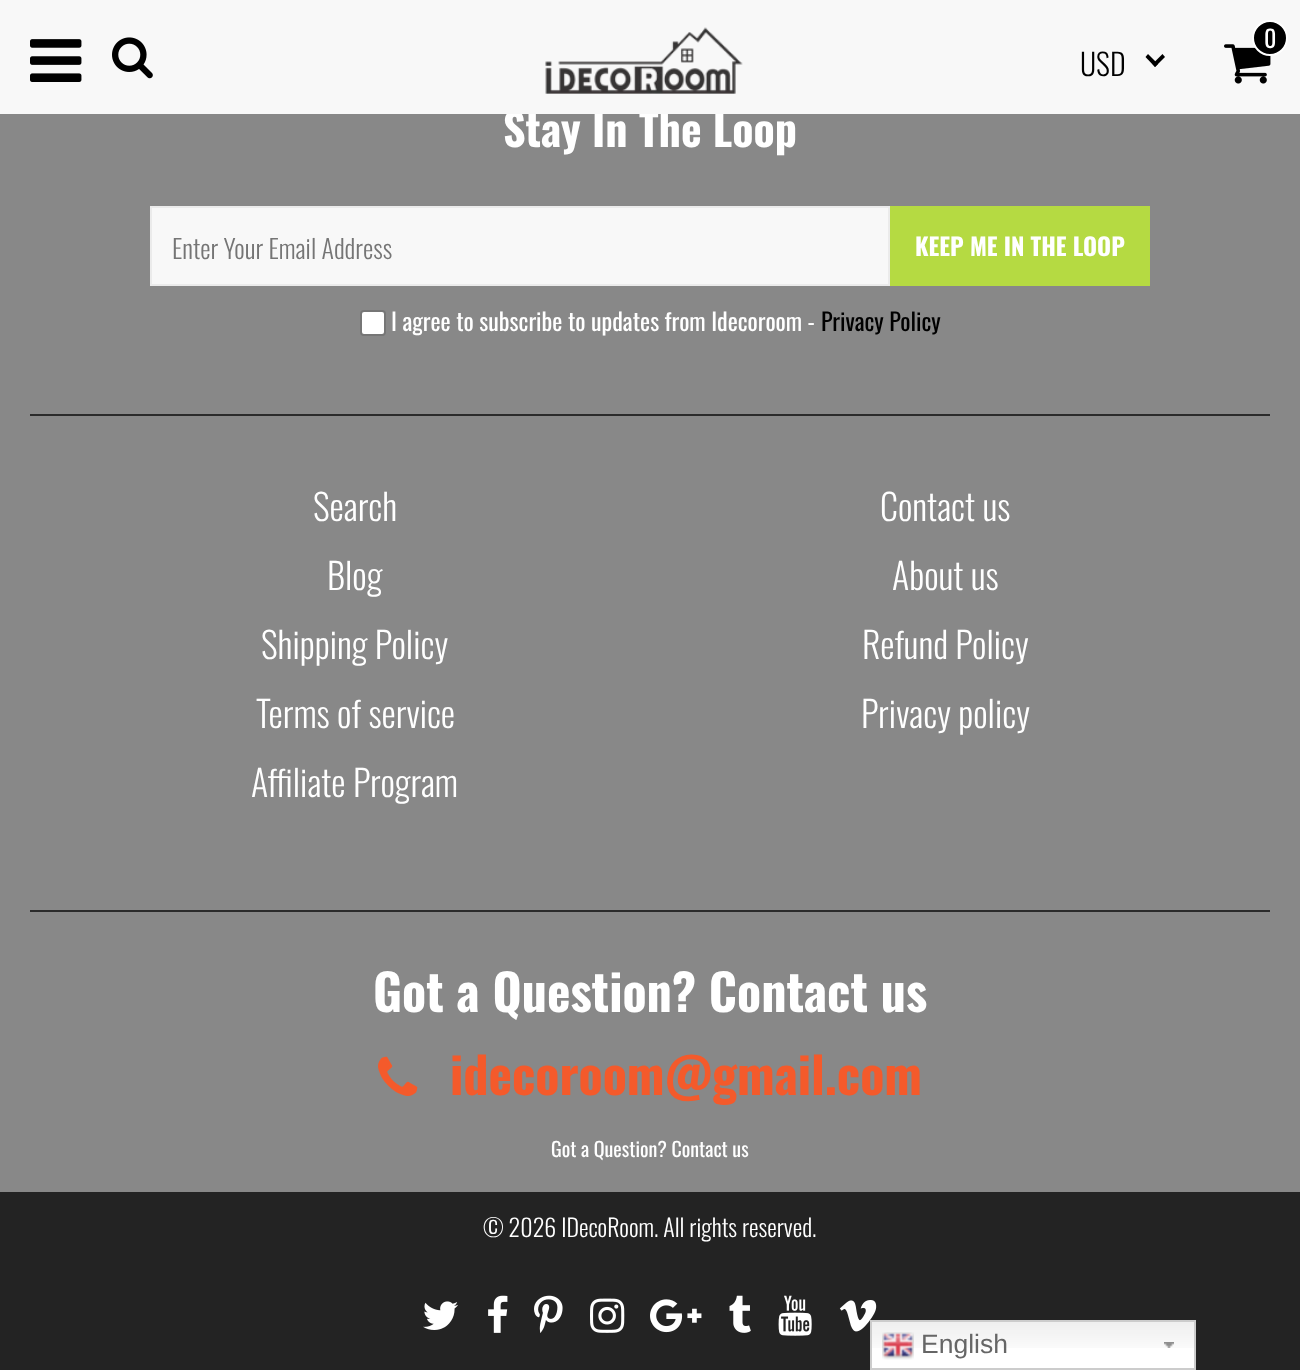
async function draw(canvas) {
  canvas.width = 1300
  canvas.height = 1370
  const ctx = canvas.getContext('2d')
  ctx.miterLimit = 4
  ctx.fontKerning = 'normal'
  async function loadImage(src) {
    const img = new Image()
    img.src = src
    await img.decode()
    return img
  }

  ctx.fillStyle = '#888'
  ctx.fillRect(0, 0, 1300, 1370)
  ctx.font = 'bold 44px Oswald'
  ctx.fillStyle = '#fff'
  ctx.fillText('Stay In The Loop', 503, 147)
  ctx.fillStyle = '#f8f8f8'
  ctx.fillRect(0, 0, 1300, 114)
  ctx.drawImage(await loadImage('image0.png'), 30, 39, 52, 43)
  ctx.drawImage(await loadImage('image1.png'), 112, 37, 41, 42)
  ctx.drawImage(await loadImage('image2.png'), 545, 27, 198, 67)
  ctx.font = '300 30px Oswald'
  ctx.fillStyle = '#000'
  ctx.fillText('USD', 1080, 76)
  ctx.beginPath()
  ctx.moveTo(1162.5, 54)
  ctx.lineTo(1165, 57)
  ctx.lineTo(1155, 67)
  ctx.lineTo(1152.5, 64)
  ctx.closePath()
  ctx.fill()
  ctx.beginPath()
  ctx.moveTo(1148, 54)
  ctx.lineTo(1158, 64)
  ctx.lineTo(1155, 67)
  ctx.lineTo(1145.5, 57)
  ctx.closePath()
  ctx.fill()
  ctx.drawImage(await loadImage('image3.png'), 1224, 44, 47, 40)
  ctx.beginPath()
  ctx.arc(1270, 38, 17, 0, 2 * Math.PI)
  ctx.fill()
  ctx.strokeStyle = '#fff'
  ctx.lineWidth = 2
  ctx.stroke()
  ctx.font = '24px Oswald'
  ctx.fillStyle = '#fff'
  ctx.fillText('0', 1264, 48)
  ctx.fillStyle = '#f8f8f8'
  ctx.beginPath()
  ctx.rect(151, 207, 738, 78)
  ctx.fill()
  ctx.strokeStyle = '#ebebeb'
  ctx.stroke()
  ctx.font = '300 26px Oswald'
  ctx.fillStyle = '#757575'
  ctx.fillText('Enter Your Email Address', 172, 259)
  ctx.fillStyle = '#b5da42'
  ctx.fillRect(890, 206, 260, 80)
  ctx.font = 'bold 24px Oswald'
  ctx.fillStyle = '#fff'
  ctx.fillText('KEEP ME IN THE LOOP', 915, 256)
  ctx.beginPath()
  ctx.roundRect(361, 311, 24, 24, 3)
  ctx.fill()
  ctx.strokeStyle = '#767676'
  ctx.stroke()
  ctx.font = '24px Oswald'
  ctx.fillText('I agree to subscribe to updates from Idecoroom -', 391, 331)
  ctx.fillStyle = '#000'
  ctx.fillText('Privacy Policy', 821, 331)
  ctx.fillStyle = '#2b2b2b'
  ctx.fillRect(30, 414, 1240, 2)
  ctx.fillRect(30, 910, 1240, 2)
  ctx.font = '300 36px Oswald'
  ctx.fillStyle = '#fff'
  ctx.fillText('Search', 313, 521)
  ctx.fillText('Contact us', 880, 521)
  ctx.fillText('Blog', 327, 590)
  ctx.fillText('About us', 892, 590)
  ctx.fillText('Shipping Policy', 261, 659)
  ctx.fillText('Refund Policy', 862, 659)
  ctx.fillText('Terms of service', 256, 728)
  ctx.fillText('Privacy policy', 861, 728)
  ctx.fillText('Affiliate Program', 251, 797)
  ctx.font = 'bold 50px Oswald'
  ctx.fillText('Got a Question? Contact us', 373, 1012)
  ctx.drawImage(await loadImage('image4.png'), 378, 1056, 40, 40)
  ctx.fillStyle = '#f45a2b'
  ctx.fillText('idecoroom@gmail.com', 450, 1095)
  ctx.font = '20px Oswald'
  ctx.fillStyle = '#fff'
  ctx.fillText('Got a Question? Contact us', 551, 1157)
  ctx.fillStyle = '#232323'
  ctx.fillRect(0, 1192, 1300, 178)
  ctx.font = '300 24px Oswald'
  ctx.fillStyle = '#fff'
  ctx.fillText('© 2026 IDecoRoom', 483, 1237)
  ctx.fillText('. All rights reserved.', 654, 1237)
  ctx.drawImage(await loadImage('image5.png'), 423, 1301, 35, 29)
  ctx.drawImage(await loadImage('image6.png'), 488, 1295, 20, 38)
  ctx.drawImage(await loadImage('image7.png'), 534, 1295, 29, 38)
  ctx.drawImage(await loadImage('image8.png'), 590, 1298, 35, 35)
  ctx.drawImage(await loadImage('image9.png'), 650, 1299, 52, 34)
  ctx.drawImage(await loadImage('image10.png'), 729, 1295, 22, 38)
  ctx.drawImage(await loadImage('image11.png'), 778, 1295, 34, 41)
  ctx.drawImage(await loadImage('image12.png'), 839, 1300, 38, 32)
  ctx.fillRect(872, 1348, 322, 20)
  ctx.drawImage(await loadImage('image13.png'), 872, 1322, 322, 26)
  ctx.drawImage(await loadImage('image14.png'), 1164, 1342, 10, 6)
  ctx.strokeStyle = '#ccc'
  ctx.strokeRect(871, 1321, 324, 48)
  ctx.drawImage(await loadImage('image15.png'), 882, 1332, 32, 28)
  ctx.font = '26.5px Liberation Sans'
  ctx.fillStyle = '#666'
  ctx.fillText('English', 921, 1353)
}

draw(document.querySelector('canvas'))
